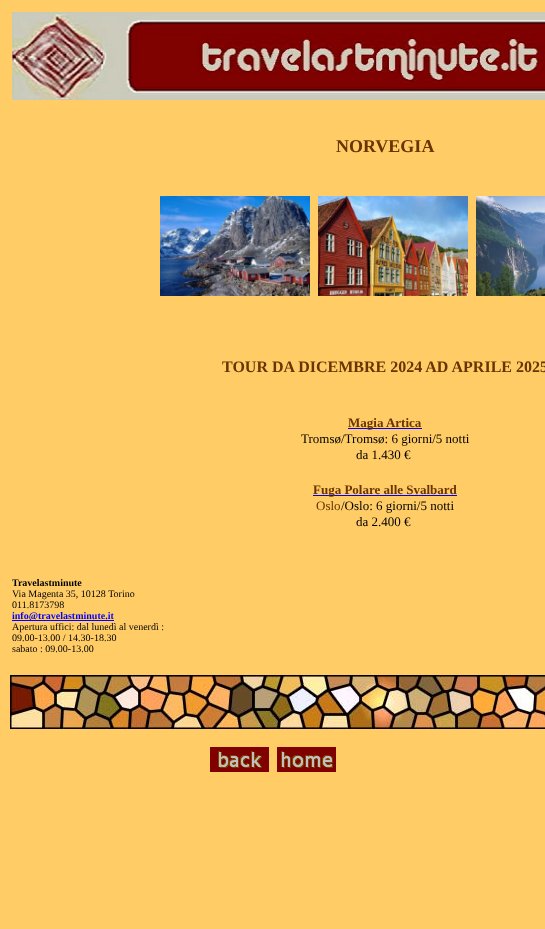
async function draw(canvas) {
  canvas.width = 545
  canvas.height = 929
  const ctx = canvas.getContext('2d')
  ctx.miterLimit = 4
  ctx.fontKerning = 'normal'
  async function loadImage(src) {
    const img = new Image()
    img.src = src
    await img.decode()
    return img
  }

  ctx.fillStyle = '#fc6'
  ctx.fillRect(0, 0, 545, 929)
  ctx.drawImage(await loadImage('image0.png'), 12, 12, 533, 88)
  ctx.font = 'bold 18px Liberation Serif'
  ctx.fillStyle = '#683400'
  ctx.fillText('NORVEGIA', 336, 152)
  ctx.drawImage(await loadImage('image1.png'), 160, 196, 150, 100)
  ctx.drawImage(await loadImage('image2.png'), 318, 196, 150, 100)
  ctx.drawImage(await loadImage('image3.png'), 476, 196, 69, 100)
  ctx.font = 'bold 16px Liberation Serif'
  ctx.fillText('TOUR DA DICEMBRE 2024 AD APRILE 2025', 222, 372)
  ctx.fillStyle = '#00f'
  ctx.fillRect(348, 428, 74, 1)
  ctx.font = 'bold 13px Liberation Serif'
  ctx.fillStyle = '#683400'
  ctx.fillText('Magia Artica', 348, 427)
  ctx.font = '13px Liberation Serif'
  ctx.fillStyle = '#000'
  ctx.fillText('Tromsø/Tromsø: 6 giorni/5 notti', 301, 443)
  ctx.fillText('da 1.430 €', 356, 459)
  ctx.fillStyle = '#00f'
  ctx.fillRect(313, 495, 144, 1)
  ctx.font = 'bold 13px Liberation Serif'
  ctx.fillStyle = '#683400'
  ctx.fillText('Fuga Polare alle Svalbard', 313, 494)
  ctx.font = '13px Liberation Serif'
  ctx.fillText('Oslo', 316, 510)
  ctx.fillStyle = '#000'
  ctx.fillText('/Oslo: 6 giorni/5 notti', 341, 510)
  ctx.fillText('da 2.400 €', 356, 526)
  ctx.font = 'bold 10px Liberation Serif'
  ctx.fillText('Travelastminute', 12, 586)
  ctx.font = '10px Liberation Serif'
  ctx.fillText('Via Magenta 35, 10128 Torino', 12, 597)
  ctx.fillText('011.8173798', 12, 608)
  ctx.fillStyle = '#00f'
  ctx.fillRect(12, 620, 102, 1)
  ctx.font = 'bold 10px Liberation Serif'
  ctx.fillText('info@travelastminute.it', 12, 619)
  ctx.font = '10px Liberation Serif'
  ctx.fillStyle = '#000'
  ctx.fillText('Apertura uffici: dal lunedì al venerdì :', 12, 630)
  ctx.fillText('09.00-13.00 / 14.30-18.30', 12, 641)
  ctx.fillText('sabato : 09.00-13.00', 12, 652)
  ctx.drawImage(await loadImage('image4.png'), 10, 675, 535, 54)
  ctx.drawImage(await loadImage('image5.png'), 210, 747, 59, 25)
  ctx.drawImage(await loadImage('image6.png'), 277, 747, 59, 25)
}

draw(document.querySelector('canvas'))
